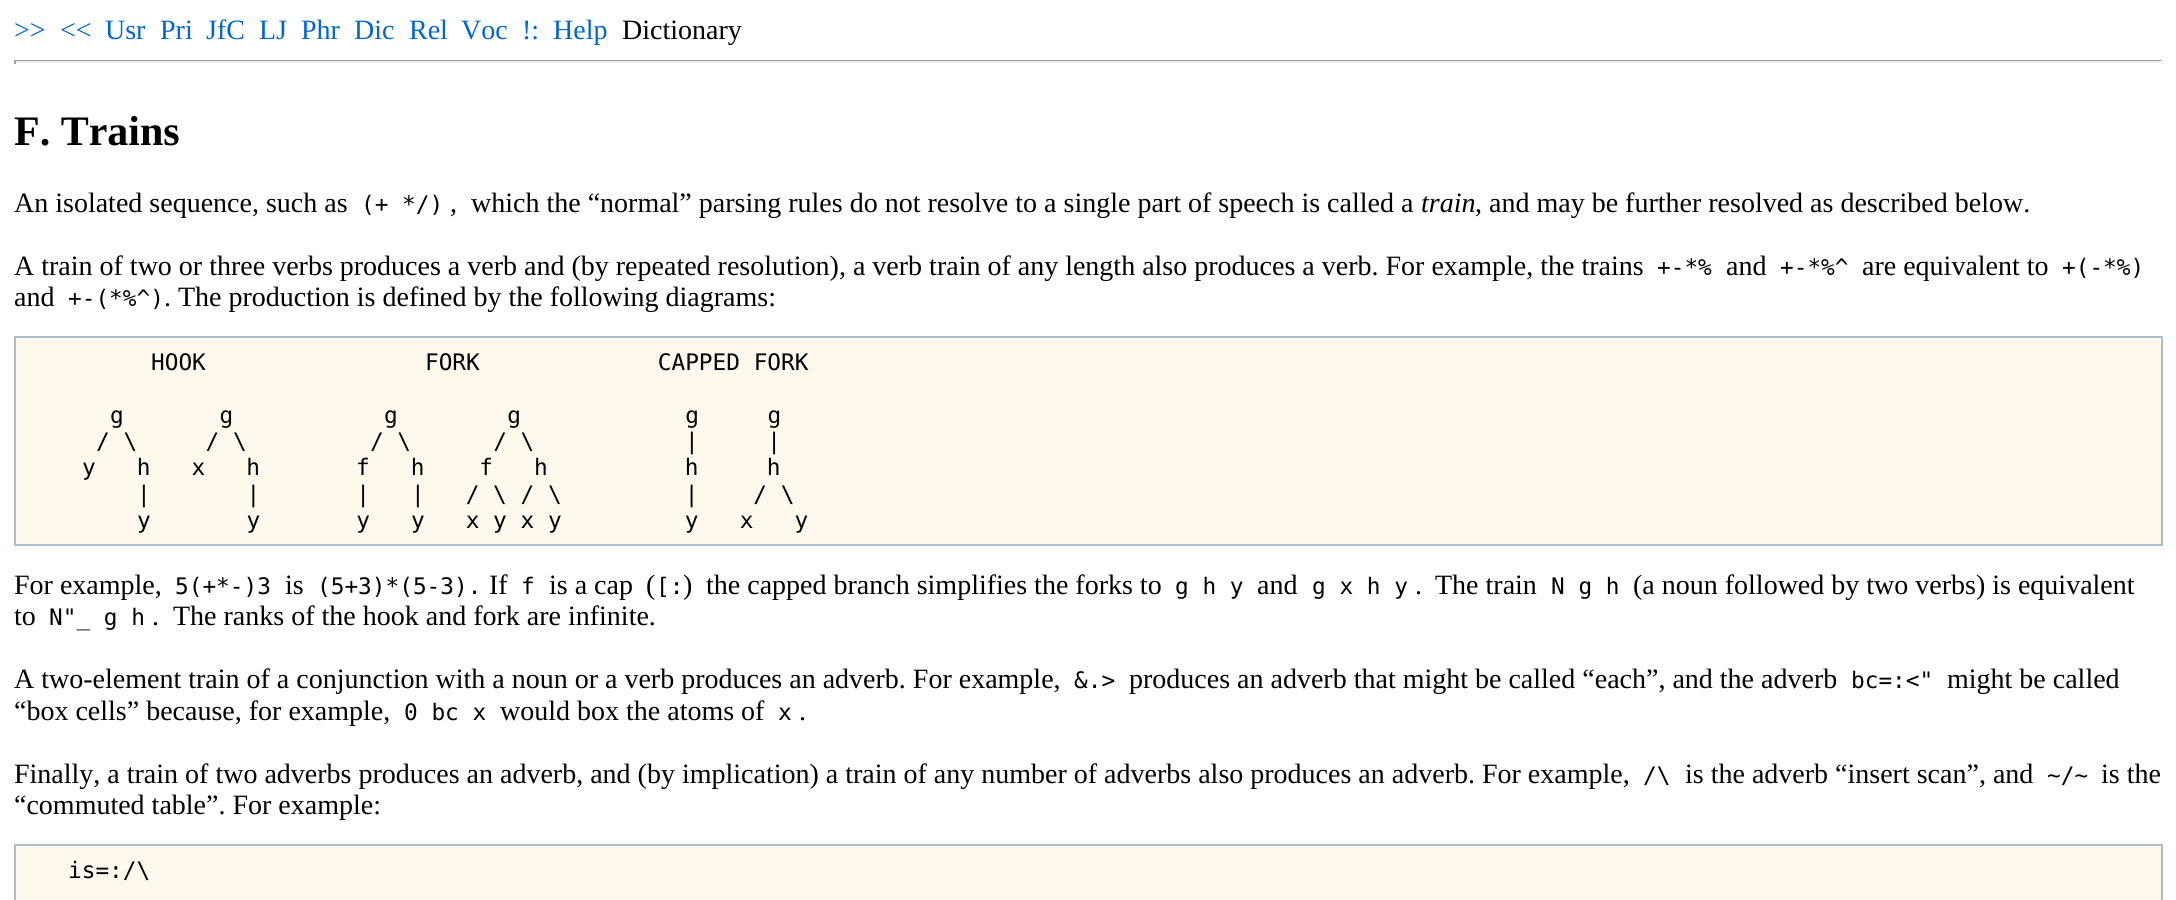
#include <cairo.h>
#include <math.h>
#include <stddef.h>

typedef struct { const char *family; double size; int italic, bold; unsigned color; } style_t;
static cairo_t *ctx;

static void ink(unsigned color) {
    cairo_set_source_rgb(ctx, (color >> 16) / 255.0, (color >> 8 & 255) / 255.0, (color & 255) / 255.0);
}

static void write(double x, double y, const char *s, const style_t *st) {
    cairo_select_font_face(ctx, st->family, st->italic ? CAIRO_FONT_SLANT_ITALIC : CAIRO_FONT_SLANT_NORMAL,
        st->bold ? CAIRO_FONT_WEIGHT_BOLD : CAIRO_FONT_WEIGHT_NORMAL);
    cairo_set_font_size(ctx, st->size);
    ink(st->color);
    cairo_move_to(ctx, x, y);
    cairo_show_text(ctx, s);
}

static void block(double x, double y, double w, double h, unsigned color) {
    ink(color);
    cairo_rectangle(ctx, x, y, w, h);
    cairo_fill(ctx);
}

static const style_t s1 = {"Liberation Serif", 28, 0, 0, 0x0066cc};
static const style_t s2 = {"Liberation Serif", 28, 0, 0, 0x000000};
static const style_t s3 = {"Liberation Serif", 42, 0, 1, 0x000000};
static const style_t s4 = {"DejaVu Sans Mono", 22.75, 0, 0, 0x000000};
static const style_t s5 = {"Liberation Serif", 28, 1, 0, 0x000000};

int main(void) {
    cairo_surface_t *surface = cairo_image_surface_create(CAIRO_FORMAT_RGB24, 2176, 900);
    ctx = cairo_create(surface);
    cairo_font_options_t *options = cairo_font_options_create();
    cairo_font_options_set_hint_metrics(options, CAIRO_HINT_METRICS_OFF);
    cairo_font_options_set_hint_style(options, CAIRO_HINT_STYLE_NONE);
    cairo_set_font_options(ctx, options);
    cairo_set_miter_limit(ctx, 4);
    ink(0xffffff);
    cairo_paint(ctx);
    write(14, 39, ">>", &s1);
    write(60, 39, "<<", &s1);
    write(105, 39, "Usr", &s1);
    write(160, 39, "Pri", &s1);
    write(206, 39, "JfC", &s1);
    write(259, 39, "LJ", &s1);
    write(301, 39, "Phr", &s1);
    write(354, 39, "Dic", &s1);
    write(409, 39, "Rel", &s1);
    write(461, 39, "Voc", &s1);
    write(522, 39, "!:", &s1);
    write(553, 39, "Help", &s1);
    write(622, 39, "Dictionary", &s2);
    block(14, 60, 2149, 1, 0x9f9f9f);
    block(2161, 60, 2, 4, 0xeeeeee);
    block(14, 61, 2149, 2, 0xeeeeee);
    block(14, 60, 2, 4, 0x9f9f9f);
    write(14, 145, "F. Trains", &s3);
    write(14, 212, "An isolated sequence, such as", &s2);
    write(361, 212, "(+ */)", &s4);
    write(450, 212, ",", &s2);
    write(471, 212, "which the “normal” parsing rules do not resolve to a single part of speech is called a", &s2);
    write(1421, 212, "train", &s5);
    write(1475, 212, ", and may be further resolved as described below.", &s2);
    write(14, 275, "A train of two or three verbs produces a verb and (by repeated resolution), a verb train of any length also produces a verb. For example, the trains", &s2);
    write(1657, 275, "+-*%", &s4);
    write(1726, 275, "and", &s2);
    write(1780, 275, "+-*%^", &s4);
    write(1862, 275, "are equivalent to", &s2);
    write(2062, 275, "+(-*%)", &s4);
    write(14, 306, "and", &s2);
    write(68, 306, "+-(*%^)", &s4);
    write(164, 306, ". The production is defined by the following diagrams:", &s2);
    ink(0xfff8ed);
    cairo_rectangle(ctx, 15, 337, 2147, 208);
    cairo_fill_preserve(ctx);
    ink(0xaebdcc);
    cairo_stroke(ctx);
    write(151, 370, "HOOK                FORK             CAPPED FORK", &s4);
    write(110, 423, "g       g           g        g            g     g", &s4);
    write(96, 449, "/ \\     / \\         / \\      / \\           |     |", &s4);
    write(82, 475, "y   h   x   h       f   h    f   h          h     h", &s4);
    write(137, 502, "|       |       |   |   / \\ / \\         |    / \\", &s4);
    write(137, 528, "y       y       y   y   x y x y         y   x   y", &s4);
    write(14, 594, "For example,", &s2);
    write(175, 594, "5(+*-)3", &s4);
    write(285, 594, "is", &s2);
    write(317, 594, "(5+3)*(5-3).", &s4);
    write(489, 594, "If", &s2);
    write(521, 594, "f", &s4);
    write(549, 594, "is a cap", &s2);
    write(646, 594, "(", &s2);
    write(656, 594, "[:", &s4);
    write(683, 594, ")", &s2);
    write(706, 594, "the capped branch simplifies the forks to", &s2);
    write(1175, 594, "g h y", &s4);
    write(1257, 594, "and", &s2);
    write(1312, 594, "g x h y", &s4);
    write(1415, 594, ".", &s2);
    write(1435, 594, "The train", &s2);
    write(1551, 594, "N g h", &s4);
    write(1633, 594, "(a noun followed by two verbs) is equivalent", &s2);
    write(14, 625, "to", &s2);
    write(49, 625, "N\"_ g h", &s4);
    write(152, 625, ".", &s2);
    write(173, 625, "The ranks of the hook and fork are infinite.", &s2);
    write(14, 688, "A two-element train of a conjunction with a noun or a verb produces an adverb. For example,", &s2);
    write(1074, 688, "&.>", &s4);
    write(1129, 688, "produces an adverb that might be called “each”, and the adverb", &s2);
    write(1851, 688, "bc=:<\"", &s4);
    write(1947, 688, "might be called", &s2);
    write(14, 720, "“box cells” because, for example,", &s2);
    write(404, 720, "0 bc x", &s4);
    write(500, 720, "would box the atoms of", &s2);
    write(778, 720, "x", &s4);
    write(799, 720, ".", &s2);
    write(14, 783, "Finally, a train of two adverbs produces an adverb, and (by implication) a train of any number of adverbs also produces an adverb. For example,", &s2);
    write(1643, 783, "/\\", &s4);
    write(1685, 783, "is the adverb “insert scan”, and", &s2);
    write(2047, 783, "~/~", &s4);
    write(2101, 783, "is the", &s2);
    write(14, 814, "“commuted table”. For example:", &s2);
    ink(0xfff8ed);
    cairo_rectangle(ctx, 15, 845, 2147, 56);
    cairo_fill_preserve(ctx);
    ink(0xaebdcc);
    cairo_stroke(ctx);
    write(68, 878, "is=:/\\", &s4);
    cairo_surface_write_to_png(surface, "screenshot.png");
    cairo_font_options_destroy(options);
    cairo_destroy(ctx);
    cairo_surface_destroy(surface);
    return 0;
}
